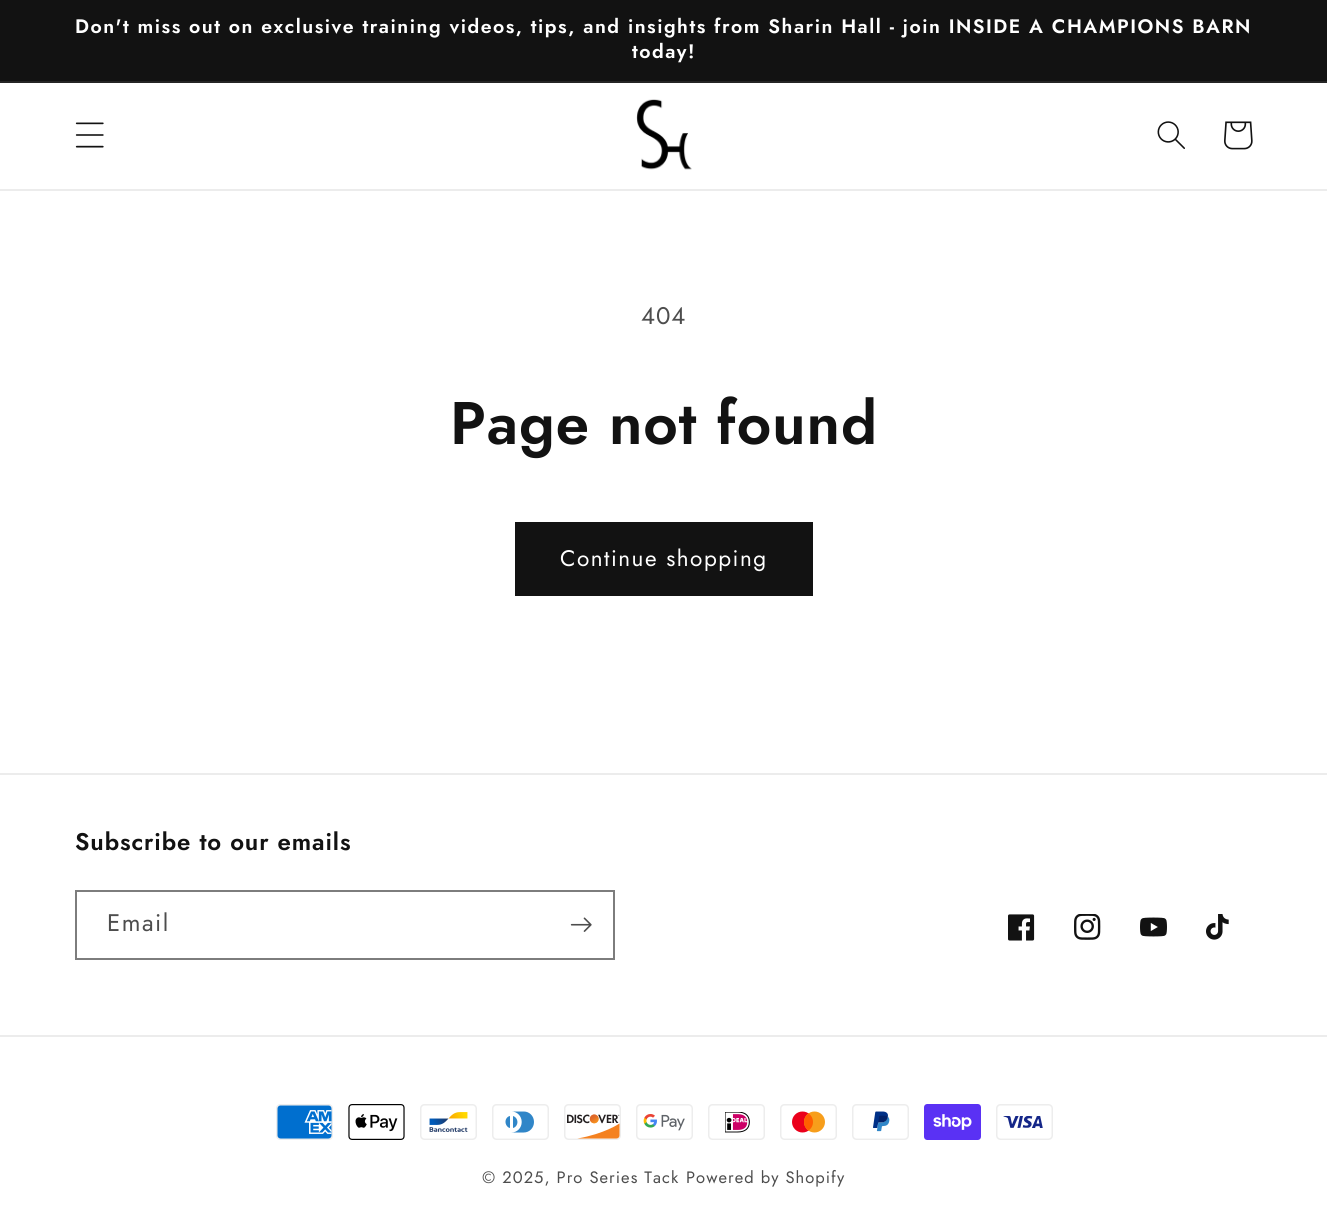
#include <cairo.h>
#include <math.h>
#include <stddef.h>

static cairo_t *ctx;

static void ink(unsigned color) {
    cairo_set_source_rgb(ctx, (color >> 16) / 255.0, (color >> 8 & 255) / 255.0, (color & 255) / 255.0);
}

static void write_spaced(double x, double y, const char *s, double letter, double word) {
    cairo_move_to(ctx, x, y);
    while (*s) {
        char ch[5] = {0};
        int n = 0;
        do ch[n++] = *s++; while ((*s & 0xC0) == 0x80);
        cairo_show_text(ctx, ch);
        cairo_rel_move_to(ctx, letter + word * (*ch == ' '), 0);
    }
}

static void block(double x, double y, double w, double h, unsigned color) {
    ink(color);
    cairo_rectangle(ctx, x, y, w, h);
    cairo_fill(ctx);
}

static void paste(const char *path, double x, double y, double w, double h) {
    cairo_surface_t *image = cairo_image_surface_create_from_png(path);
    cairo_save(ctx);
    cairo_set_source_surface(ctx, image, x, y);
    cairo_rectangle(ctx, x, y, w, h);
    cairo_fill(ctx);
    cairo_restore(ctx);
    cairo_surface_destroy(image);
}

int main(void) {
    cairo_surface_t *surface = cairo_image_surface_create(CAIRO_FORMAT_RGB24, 1327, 1228);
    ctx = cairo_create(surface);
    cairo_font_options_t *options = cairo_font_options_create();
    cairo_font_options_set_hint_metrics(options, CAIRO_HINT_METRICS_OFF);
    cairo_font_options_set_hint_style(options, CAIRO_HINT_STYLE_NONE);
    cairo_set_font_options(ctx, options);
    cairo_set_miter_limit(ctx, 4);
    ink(0xffffff);
    cairo_paint(ctx);
    block(0, 0, 1327, 81, 0x121212);
    block(0, 81, 1327, 2, 0x252525);
    cairo_select_font_face(ctx, "Jost SemiBold", CAIRO_FONT_SLANT_NORMAL, CAIRO_FONT_WEIGHT_NORMAL);
    cairo_set_font_size(ctx, 19.5);
    ink(0xffffff);
    write_spaced(75, 33, "Don't miss out on exclusive training videos, tips, and insights from Sharin Hall - join INSIDE A CHAMPIONS BARN", 1.5, 0);
    write_spaced(632, 58, "today!", 1.5, 0);
    block(0, 189, 1327, 2, 0xececec);
    paste("pic1.png", 75, 122, 29, 26);
    paste("pic2.png", 636, 99, 56, 71);
    paste("pic3.png", 1157, 121, 28, 28);
    paste("pic4.png", 1224, 121, 29, 29);
    cairo_select_font_face(ctx, "Jost", CAIRO_FONT_SLANT_NORMAL, CAIRO_FONT_WEIGHT_NORMAL);
    cairo_set_font_size(ctx, 24);
    ink(0x4d4d4d);
    write_spaced(641, 324, "404", 0.9, 0);
    cairo_select_font_face(ctx, "Jost SemiBold", CAIRO_FONT_SLANT_NORMAL, CAIRO_FONT_WEIGHT_NORMAL);
    cairo_set_font_size(ctx, 60);
    ink(0x121212);
    write_spaced(450, 444, "Page not found", 0.9, 0);
    block(515, 522, 298, 74, 0x121212);
    cairo_select_font_face(ctx, "Jost", CAIRO_FONT_SLANT_NORMAL, CAIRO_FONT_WEIGHT_NORMAL);
    cairo_set_font_size(ctx, 22.5);
    ink(0xffffff);
    write_spaced(560, 566, "Continue shopping", 1.5, 0);
    block(0, 773, 1327, 2, 0xececec);
    cairo_select_font_face(ctx, "Jost SemiBold", CAIRO_FONT_SLANT_NORMAL, CAIRO_FONT_WEIGHT_NORMAL);
    cairo_set_font_size(ctx, 24);
    ink(0x121212);
    write_spaced(75, 850, "Subscribe to our emails", 0.9, 0);
    cairo_rectangle(ctx, 76, 891, 538, 68);
    ink(0x7d7d7d);
    cairo_stroke(ctx);
    cairo_select_font_face(ctx, "Jost", CAIRO_FONT_SLANT_NORMAL, CAIRO_FONT_WEIGHT_NORMAL);
    ink(0x4d4d4d);
    write_spaced(107, 931, "Email", 1.5, 0);
    paste("pic5.png", 570, 917, 22, 15);
    paste("pic6.png", 1008, 914, 27, 27);
    paste("pic7.png", 1074, 914, 27, 26);
    paste("pic8.png", 1140, 917, 27, 20);
    paste("pic9.png", 1206, 914, 23, 26);
    block(0, 1035, 1327, 2, 0xececec);
    paste("pic10.png", 276, 1104, 57, 36);
    paste("pic11.png", 348, 1104, 57, 36);
    paste("pic12.png", 420, 1104, 57, 36);
    paste("pic13.png", 492, 1104, 57, 36);
    paste("pic14.png", 564, 1104, 57, 36);
    paste("pic15.png", 636, 1104, 57, 36);
    paste("pic16.png", 708, 1104, 57, 36);
    paste("pic17.png", 780, 1104, 57, 36);
    paste("pic18.png", 852, 1104, 57, 36);
    paste("pic19.png", 924, 1104, 57, 36);
    paste("pic20.png", 996, 1104, 57, 36);
    cairo_set_font_size(ctx, 16.5);
    ink(0x4d4d4d);
    write_spaced(482, 1183, "© 2025, Pro Series Tack", 1.05, 0);
    write_spaced(686, 1183, "Powered by Shopify", 1.05, 0);
    cairo_surface_write_to_png(surface, "screenshot.png");
    cairo_font_options_destroy(options);
    cairo_destroy(ctx);
    cairo_surface_destroy(surface);
    return 0;
}
